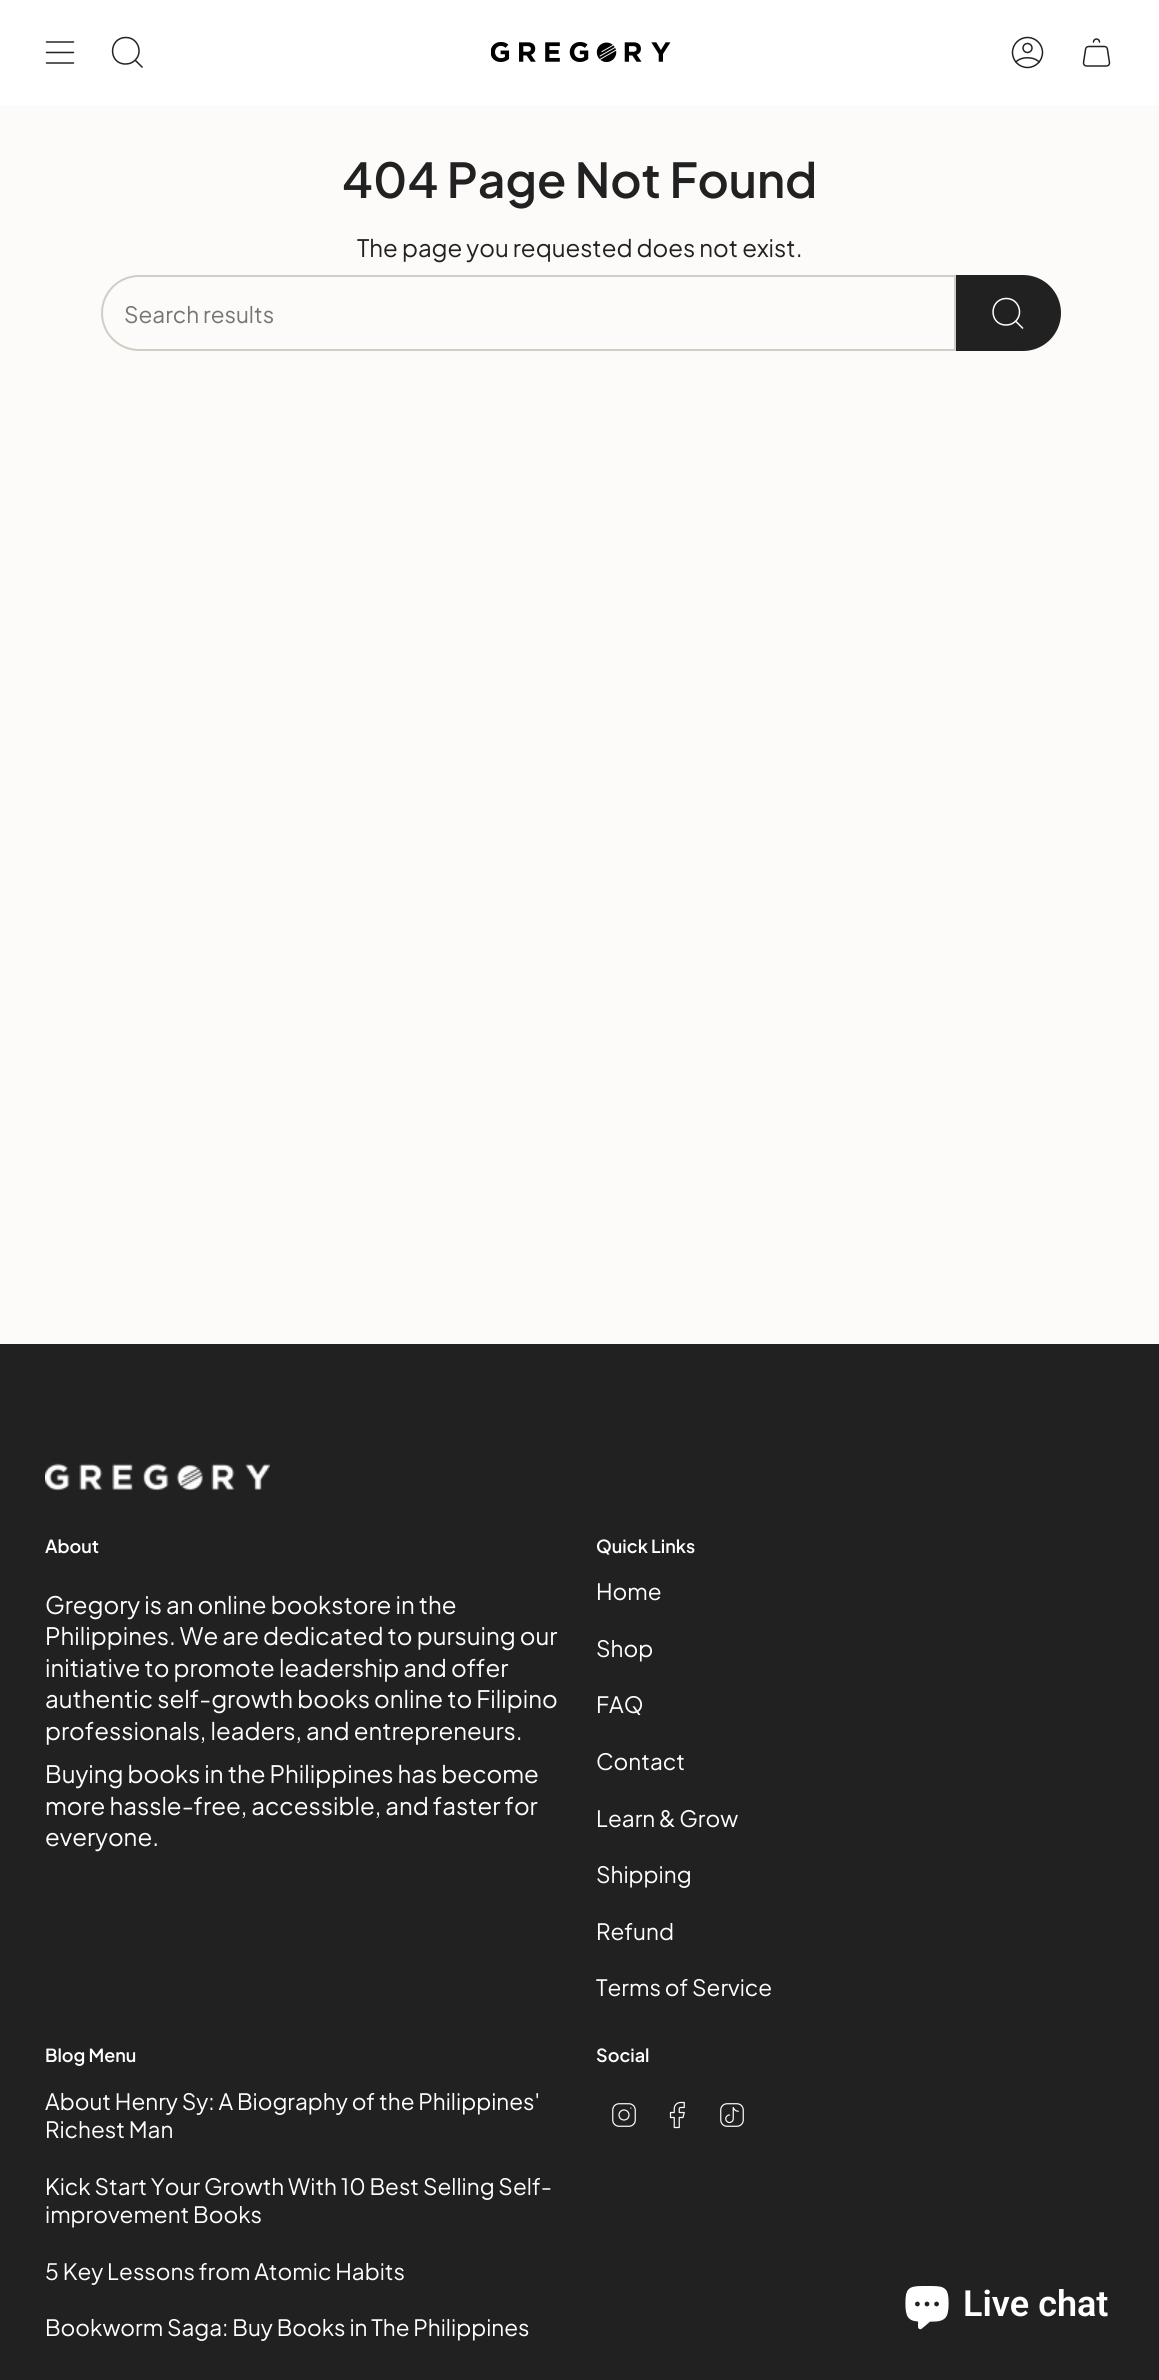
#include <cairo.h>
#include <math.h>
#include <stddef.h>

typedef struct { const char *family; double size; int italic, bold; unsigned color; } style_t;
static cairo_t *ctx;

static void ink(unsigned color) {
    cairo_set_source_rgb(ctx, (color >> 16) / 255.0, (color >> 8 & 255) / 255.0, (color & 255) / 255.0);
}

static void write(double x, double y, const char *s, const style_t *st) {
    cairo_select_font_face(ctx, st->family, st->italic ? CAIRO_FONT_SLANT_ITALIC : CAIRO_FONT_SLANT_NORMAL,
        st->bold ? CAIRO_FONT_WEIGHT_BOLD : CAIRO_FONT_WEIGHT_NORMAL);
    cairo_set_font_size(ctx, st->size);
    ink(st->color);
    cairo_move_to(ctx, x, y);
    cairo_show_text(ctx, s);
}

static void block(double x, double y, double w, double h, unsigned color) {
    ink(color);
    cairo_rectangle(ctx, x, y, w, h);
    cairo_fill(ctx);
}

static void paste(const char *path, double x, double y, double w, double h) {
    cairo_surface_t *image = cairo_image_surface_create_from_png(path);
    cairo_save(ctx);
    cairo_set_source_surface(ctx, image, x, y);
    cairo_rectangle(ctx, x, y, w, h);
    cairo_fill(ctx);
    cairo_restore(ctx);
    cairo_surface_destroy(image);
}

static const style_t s1 = {"Plus Jakarta Sans SemiBold", 48, 0, 0, 0x212121};
static const style_t s2 = {"Plus Jakarta Sans", 24, 0, 0, 0x212121};
static const style_t s3 = {"Plus Jakarta Sans", 22.5, 0, 0, 0x757575};
static const style_t s4 = {"Plus Jakarta Sans SemiBold", 18, 0, 0, 0xffffff};
static const style_t s5 = {"Plus Jakarta Sans", 24, 0, 0, 0xffffff};
static const style_t s6 = {"Plus Jakarta Sans", 22.5, 0, 0, 0xffffff};
static const style_t s7 = {"Roboto SemiBold", 36, 0, 0, 0xffffff};

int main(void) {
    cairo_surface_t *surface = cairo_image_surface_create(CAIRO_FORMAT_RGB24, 1159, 2380);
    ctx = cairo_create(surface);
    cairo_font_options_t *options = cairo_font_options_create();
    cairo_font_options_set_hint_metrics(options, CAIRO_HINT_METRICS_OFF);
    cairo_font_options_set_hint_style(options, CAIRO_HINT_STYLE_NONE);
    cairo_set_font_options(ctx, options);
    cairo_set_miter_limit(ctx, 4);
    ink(0xfcfbf9);
    cairo_paint(ctx);
    block(0, 0, 1159, 105, 0xffffff);
    cairo_new_path(ctx);
    cairo_move_to(ctx, 46.5, 42);
    cairo_line_to(ctx, 73.5, 42);
    cairo_move_to(ctx, 46.5, 52.5);
    cairo_line_to(ctx, 73.5, 52.5);
    cairo_move_to(ctx, 46.5, 63);
    cairo_line_to(ctx, 73.5, 63);
    ink(0x212121);
    cairo_set_line_width(ctx, 1.5);
    cairo_set_line_cap(ctx, CAIRO_LINE_CAP_ROUND);
    cairo_set_line_join(ctx, CAIRO_LINE_JOIN_ROUND);
    cairo_stroke(ctx);
    cairo_new_path(ctx);
    cairo_move_to(ctx, 126, 37.5);
    cairo_curve_to(ctx, 138.5, 37.5, 144, 54, 133.5, 61.5);
    cairo_curve_to(ctx, 131, 63.5, 128, 64, 125, 64);
    cairo_curve_to(ctx, 108, 63.5, 108.5, 37.5, 126, 37.5);
    cairo_close_path(ctx);
    cairo_move_to(ctx, 135, 60);
    cairo_line_to(ctx, 142.5, 67.5);
    cairo_set_line_cap(ctx, CAIRO_LINE_CAP_BUTT);
    cairo_set_line_join(ctx, CAIRO_LINE_JOIN_MITER);
    cairo_stroke(ctx);
    paste("pic1.png", 491, 42, 180, 20);
    paste("pic2.png", 1011, 36, 33, 33);
    paste("pic3.png", 1082, 38, 29, 29);
    write(342, 198, "404 Page Not Found", &s1);
    write(357, 257, "The page you requested does not exist.", &s2);
    cairo_new_path(ctx);
    cairo_move_to(ctx, 139, 276);
    cairo_line_to(ctx, 955, 276);
    cairo_line_to(ctx, 955, 350);
    cairo_line_to(ctx, 139, 350);
    cairo_curve_to(ctx, 118.5, 350, 102, 333.5, 102, 313);
    cairo_curve_to(ctx, 102, 292.5, 118.5, 276, 139, 276);
    cairo_close_path(ctx);
    ink(0xd1cdc4);
    cairo_set_line_width(ctx, 2);
    cairo_stroke(ctx);
    write(124, 323, "Search results", &s3);
    ink(0x212121);
    cairo_new_path(ctx);
    cairo_move_to(ctx, 957, 276);
    cairo_line_to(ctx, 1023, 276);
    cairo_curve_to(ctx, 1043.5, 276, 1060, 292.5, 1060, 313);
    cairo_curve_to(ctx, 1060, 333.5, 1043.5, 350, 1023, 350);
    cairo_line_to(ctx, 957, 350);
    cairo_close_path(ctx);
    cairo_fill_preserve(ctx);
    cairo_stroke(ctx);
    cairo_new_path(ctx);
    cairo_move_to(ctx, 1006.5, 298.5);
    cairo_curve_to(ctx, 1019, 298.5, 1024.5, 315, 1014, 322.5);
    cairo_curve_to(ctx, 1011.5, 324.5, 1008.5, 325, 1005.5, 325);
    cairo_curve_to(ctx, 988.5, 324.5, 989, 298.5, 1006.5, 298.5);
    cairo_close_path(ctx);
    cairo_move_to(ctx, 1015.5, 321);
    cairo_line_to(ctx, 1023, 328.5);
    ink(0xffffff);
    cairo_set_line_width(ctx, 1.5);
    cairo_stroke(ctx);
    block(0, 1344, 1159, 1036, 0x212121);
    paste("pic4.png", 45, 1463, 225, 28);
    write(45, 1553, "About", &s4);
    write(45, 1614, "Gregory is an online bookstore in the", &s5);
    write(45, 1645, "Philippines. We are dedicated to pursuing our", &s5);
    write(45, 1677, "initiative to promote leadership and offer", &s5);
    write(45, 1708, "authentic self-growth books online to Filipino", &s5);
    write(45, 1740, "professionals, leaders, and entrepreneurs.", &s5);
    write(45, 1783, "Buying books in the Philippines has become", &s5);
    write(45, 1815, "more hassle-free, accessible, and faster for", &s5);
    write(45, 1846, "everyone.", &s5);
    write(596, 1553, "Quick Links", &s4);
    write(596, 1600, "Home", &s6);
    write(596, 1657, "Shop", &s6);
    write(596, 1713, "FAQ", &s6);
    write(596, 1770, "Contact", &s6);
    write(596, 1827, "Learn & Grow", &s6);
    write(596, 1883, "Shipping", &s6);
    write(596, 1940, "Refund", &s6);
    write(596, 1996, "Terms of Service", &s6);
    write(45, 2062, "Blog Menu", &s4);
    write(45, 2110, "About Henry Sy: A Biography of the Philippines'", &s6);
    write(45, 2138, "Richest Man", &s6);
    write(45, 2195, "Kick Start Your Growth With 10 Best Selling Self-", &s6);
    write(45, 2223, "improvement Books", &s6);
    write(45, 2280, "5 Key Lessons from Atomic Habits", &s6);
    write(45, 2336, "Bookworm Saga: Buy Books in The Philippines", &s6);
    write(596, 2062, "Social", &s4);
    paste("pic5.png", 612, 2103, 24, 24);
    paste("pic6.png", 669, 2101, 16, 28);
    paste("pic7.png", 720, 2103, 24, 24);
    paste("pic8.png", 905, 2286, 44, 44);
    write(963, 2316, "Live chat", &s7);
    cairo_surface_write_to_png(surface, "screenshot.png");
    cairo_font_options_destroy(options);
    cairo_destroy(ctx);
    cairo_surface_destroy(surface);
    return 0;
}
